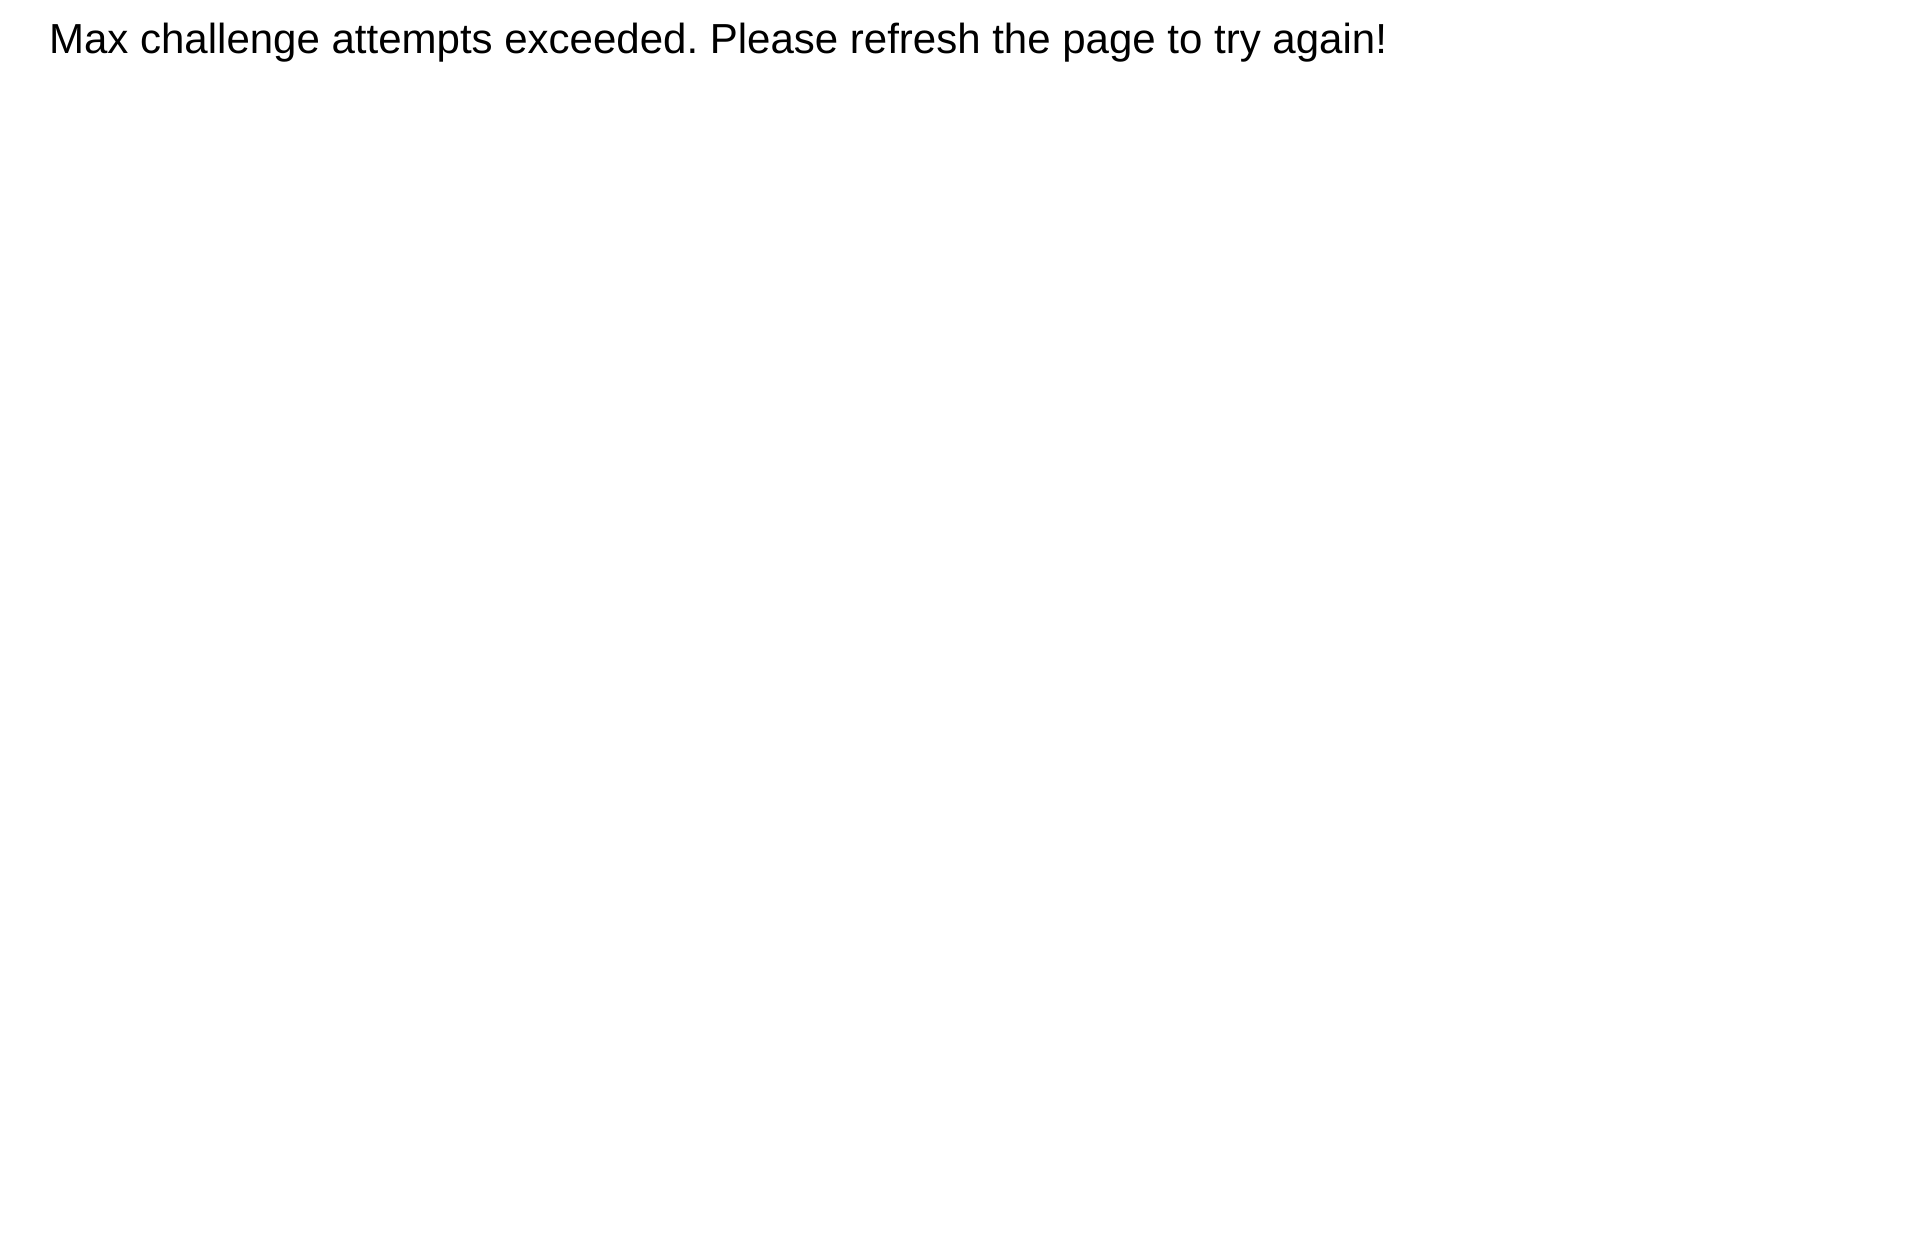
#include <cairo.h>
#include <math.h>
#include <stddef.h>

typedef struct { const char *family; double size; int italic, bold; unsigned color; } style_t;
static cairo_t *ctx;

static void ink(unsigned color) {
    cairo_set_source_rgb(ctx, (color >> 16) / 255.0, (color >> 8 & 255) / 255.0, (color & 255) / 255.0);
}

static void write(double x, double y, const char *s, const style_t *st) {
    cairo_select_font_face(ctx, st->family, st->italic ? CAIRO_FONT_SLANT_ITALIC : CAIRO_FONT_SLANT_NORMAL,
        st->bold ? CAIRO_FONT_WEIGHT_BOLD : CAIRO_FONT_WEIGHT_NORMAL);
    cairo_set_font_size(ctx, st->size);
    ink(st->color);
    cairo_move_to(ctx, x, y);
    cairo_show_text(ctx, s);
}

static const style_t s1 = {"Liberation Sans", 42, 0, 0, 0x000000};

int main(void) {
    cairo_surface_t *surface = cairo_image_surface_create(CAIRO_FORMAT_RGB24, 1915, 1256);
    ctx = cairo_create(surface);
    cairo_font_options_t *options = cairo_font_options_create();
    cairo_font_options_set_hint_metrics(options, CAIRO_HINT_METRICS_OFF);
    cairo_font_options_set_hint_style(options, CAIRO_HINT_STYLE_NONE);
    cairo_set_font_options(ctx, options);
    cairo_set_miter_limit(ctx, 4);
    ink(0xffffff);
    cairo_paint(ctx);
    write(49, 53, "Max challenge attempts exceeded. Please refresh the page to try again!", &s1);
    cairo_surface_write_to_png(surface, "screenshot.png");
    cairo_font_options_destroy(options);
    cairo_destroy(ctx);
    cairo_surface_destroy(surface);
    return 0;
}
